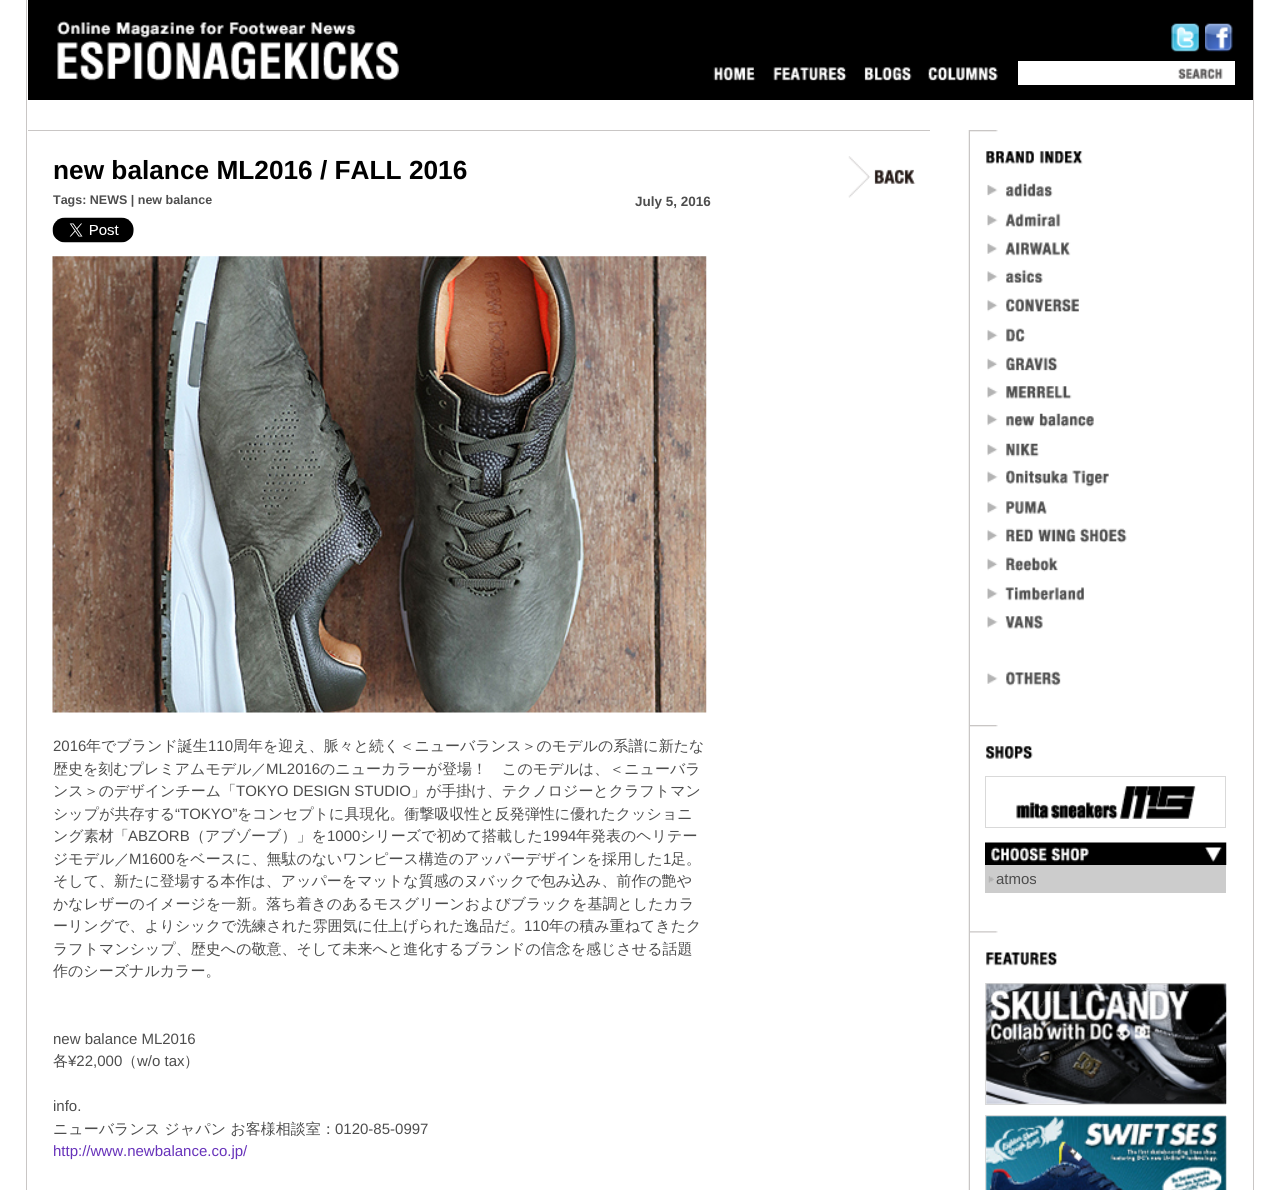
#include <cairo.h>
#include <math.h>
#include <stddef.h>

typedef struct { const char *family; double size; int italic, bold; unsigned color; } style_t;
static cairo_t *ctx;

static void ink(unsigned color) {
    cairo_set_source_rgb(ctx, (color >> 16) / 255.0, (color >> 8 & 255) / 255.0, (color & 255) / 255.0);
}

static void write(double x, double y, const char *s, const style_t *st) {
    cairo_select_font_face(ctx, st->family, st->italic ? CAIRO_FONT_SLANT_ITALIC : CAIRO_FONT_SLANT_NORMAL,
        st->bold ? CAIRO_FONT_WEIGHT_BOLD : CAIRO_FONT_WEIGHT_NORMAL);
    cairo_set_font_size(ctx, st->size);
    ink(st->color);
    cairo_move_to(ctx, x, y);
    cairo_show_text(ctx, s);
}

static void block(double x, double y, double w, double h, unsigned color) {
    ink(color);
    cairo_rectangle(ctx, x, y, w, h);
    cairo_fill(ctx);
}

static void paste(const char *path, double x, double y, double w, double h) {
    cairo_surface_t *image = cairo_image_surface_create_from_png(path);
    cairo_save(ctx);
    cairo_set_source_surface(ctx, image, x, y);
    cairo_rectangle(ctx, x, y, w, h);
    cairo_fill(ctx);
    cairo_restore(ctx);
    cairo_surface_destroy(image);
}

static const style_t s1 = {"Liberation Sans", 26.25, 0, 1, 0x000000};
static const style_t s2 = {"Liberation Sans", 12.5, 0, 1, 0x4d4d4d};
static const style_t s3 = {"Liberation Sans", 13.5, 0, 1, 0x4d4d4d};
static const style_t s4 = {"Liberation Sans", 15, 0, 0, 0x4d4d4d};
static const style_t s5 = {"WenQuanYi Zen Hei Medium", 15, 0, 0, 0x4d4d4d};
static const style_t s6 = {"Liberation Sans", 15, 0, 0, 0x6732ba};

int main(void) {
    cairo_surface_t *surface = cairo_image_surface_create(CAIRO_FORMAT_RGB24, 1279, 1190);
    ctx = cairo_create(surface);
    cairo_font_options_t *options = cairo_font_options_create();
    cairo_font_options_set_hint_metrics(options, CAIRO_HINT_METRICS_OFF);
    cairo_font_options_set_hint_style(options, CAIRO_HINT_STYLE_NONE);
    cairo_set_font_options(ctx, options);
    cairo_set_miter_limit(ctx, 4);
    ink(0xffffff);
    cairo_paint(ctx);
    block(1253, 0, 1, 1190, 0xc9c6c5);
    block(26, 0, 1, 1190, 0xc9c6c5);
    block(28, 0, 1225, 100, 0x000000);
    paste("pic1.png", 57, 21, 342, 60);
    paste("pic2.png", 1171, 23, 28, 29);
    paste("pic3.png", 1205, 23, 28, 29);
    paste("pic4.png", 713, 67, 43, 14);
    paste("pic5.png", 773, 67, 74, 14);
    paste("pic6.png", 864, 67, 48, 14);
    paste("pic7.png", 928, 67, 70, 14);
    block(1018, 61, 217, 24, 0xffffff);
    paste("pic8.png", 1178, 68, 45, 11);
    paste("pic9.png", 968, 130, 2, 1060);
    block(28, 130, 902, 1, 0xc9c6c5);
    write(53, 179, "new balance ML2016 / FALL 2016", &s1);
    paste("pic10.png", 848, 156, 68, 42);
    write(53, 204, "Tags: NEWS | new balance", &s2);
    write(635, 206, "July 5, 2016", &s3);
    paste("pic11.png", 52, 217, 82, 26);
    paste("pic12.png", 52, 256, 655, 457);
    write(53, 751, "2016", &s4);
    write(86, 751, "年でブランド誕生", &s5);
    write(208, 751, "110", &s4);
    write(233, 751, "周年を迎え、脈々と続く＜ニューバランス＞のモデルの系譜に新たな", &s5);
    write(53, 774, "歴史を刻むプレミアムモデル／", &s5);
    write(266, 774, "ML2016", &s4);
    write(320, 774, "のニューカラーが登場！　このモデルは、＜ニューバラ", &s5);
    write(53, 796, "ンス＞のデザインチーム「", &s5);
    write(236, 796, "TOKYO DESIGN STUDIO", &s4);
    write(411, 796, "」が手掛け、テクノロジーとクラフトマン", &s5);
    write(53, 819, "シップが共存する", &s5);
    write(175, 819, "“TOKYO”", &s4);
    write(237, 819, "をコンセプトに具現化。衝撃吸収性と反発弾性に優れたクッショニ", &s5);
    write(53, 841, "ング素材「", &s5);
    write(128, 841, "ABZORB", &s4);
    write(190, 841, "（アブゾーブ）」を", &s5);
    write(327, 841, "1000", &s4);
    write(360, 841, "シリーズで初めて搭載した", &s5);
    write(543, 841, "1994", &s4);
    write(576, 841, "年発表のヘリテー", &s5);
    write(53, 864, "ジモデル／", &s5);
    write(129, 864, "M1600", &s4);
    write(175, 864, "をベースに、無駄のないワンピース構造のアッパーデザインを採用した", &s5);
    write(663, 864, "1", &s4);
    write(671, 864, "足。", &s5);
    write(53, 886, "そして、新たに登場する本作は、アッパーをマットな質感のヌバックで包み込み、前作の艶や", &s5);
    write(53, 909, "かなレザーのイメージを一新。落ち着きのあるモスグリーンおよびブラックを基調としたカラ", &s5);
    write(53, 931, "ーリングで、よりシックで洗練された雰囲気に仕上げられた逸品だ。", &s5);
    write(524, 931, "110", &s4);
    write(549, 931, "年の積み重ねてきたク", &s5);
    write(53, 954, "ラフトマンシップ、歴史への敬意、そして未来へと進化するブランドの信念を感じさせる話題", &s5);
    write(53, 976, "作のシーズナルカラー。", &s5);
    write(53, 1044, "new balance ML2016", &s4);
    write(53, 1066, "各", &s5);
    write(68, 1066, "¥22,000", &s4);
    write(122, 1066, "（", &s5);
    write(137, 1066, "w/o tax", &s4);
    write(184, 1066, "）", &s5);
    write(53, 1111, "info.", &s4);
    write(53, 1134, "ニューバランス ジャパン お客様相談室：", &s5);
    write(335, 1134, "0120-85-0997", &s4);
    write(53, 1156, "http://www.newbalance.co.jp/", &s6);
    paste("pic13.png", 970, 130, 113, 34);
    paste("pic14.png", 987, 183, 66, 14);
    paste("pic15.png", 987, 213, 74, 14);
    paste("pic16.png", 987, 242, 84, 14);
    paste("pic17.png", 987, 269, 56, 14);
    paste("pic18.png", 987, 298, 92, 14);
    paste("pic19.png", 987, 328, 39, 14);
    paste("pic20.png", 987, 357, 71, 14);
    paste("pic21.png", 987, 386, 85, 13);
    paste("pic22.png", 987, 413, 107, 14);
    paste("pic23.png", 987, 443, 52, 14);
    paste("pic24.png", 987, 470, 122, 17);
    paste("pic25.png", 987, 501, 60, 13);
    paste("pic26.png", 987, 528, 140, 15);
    paste("pic27.png", 987, 557, 71, 15);
    paste("pic28.png", 987, 587, 97, 14);
    paste("pic29.png", 987, 615, 56, 14);
    paste("pic30.png", 987, 671, 74, 15);
    paste("pic31.png", 970, 725, 63, 34);
    cairo_rectangle(ctx, 985.5, 776.5, 240, 51);
    ink(0xd9d9d9);
    cairo_set_line_width(ctx, 1);
    cairo_stroke(ctx);
    paste("pic32.png", 1016, 786, 180, 33);
    paste("pic33.png", 985, 842, 242, 23);
    block(985, 865, 241, 28, 0xcccccc);
    paste("pic34.png", 988, 876, 6, 7);
    write(996, 884, "atmos", &s4);
    paste("pic35.png", 970, 931, 87, 35);
    cairo_rectangle(ctx, 985.5, 983.5, 240, 121);
    ink(0xd9d9d9);
    cairo_stroke(ctx);
    paste("pic36.png", 986, 983, 241, 121);
    cairo_rectangle(ctx, 985.5, 1115.5, 240, 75);
    cairo_stroke(ctx);
    paste("pic37.png", 986, 1116, 241, 74);
    cairo_surface_write_to_png(surface, "screenshot.png");
    cairo_font_options_destroy(options);
    cairo_destroy(ctx);
    cairo_surface_destroy(surface);
    return 0;
}
